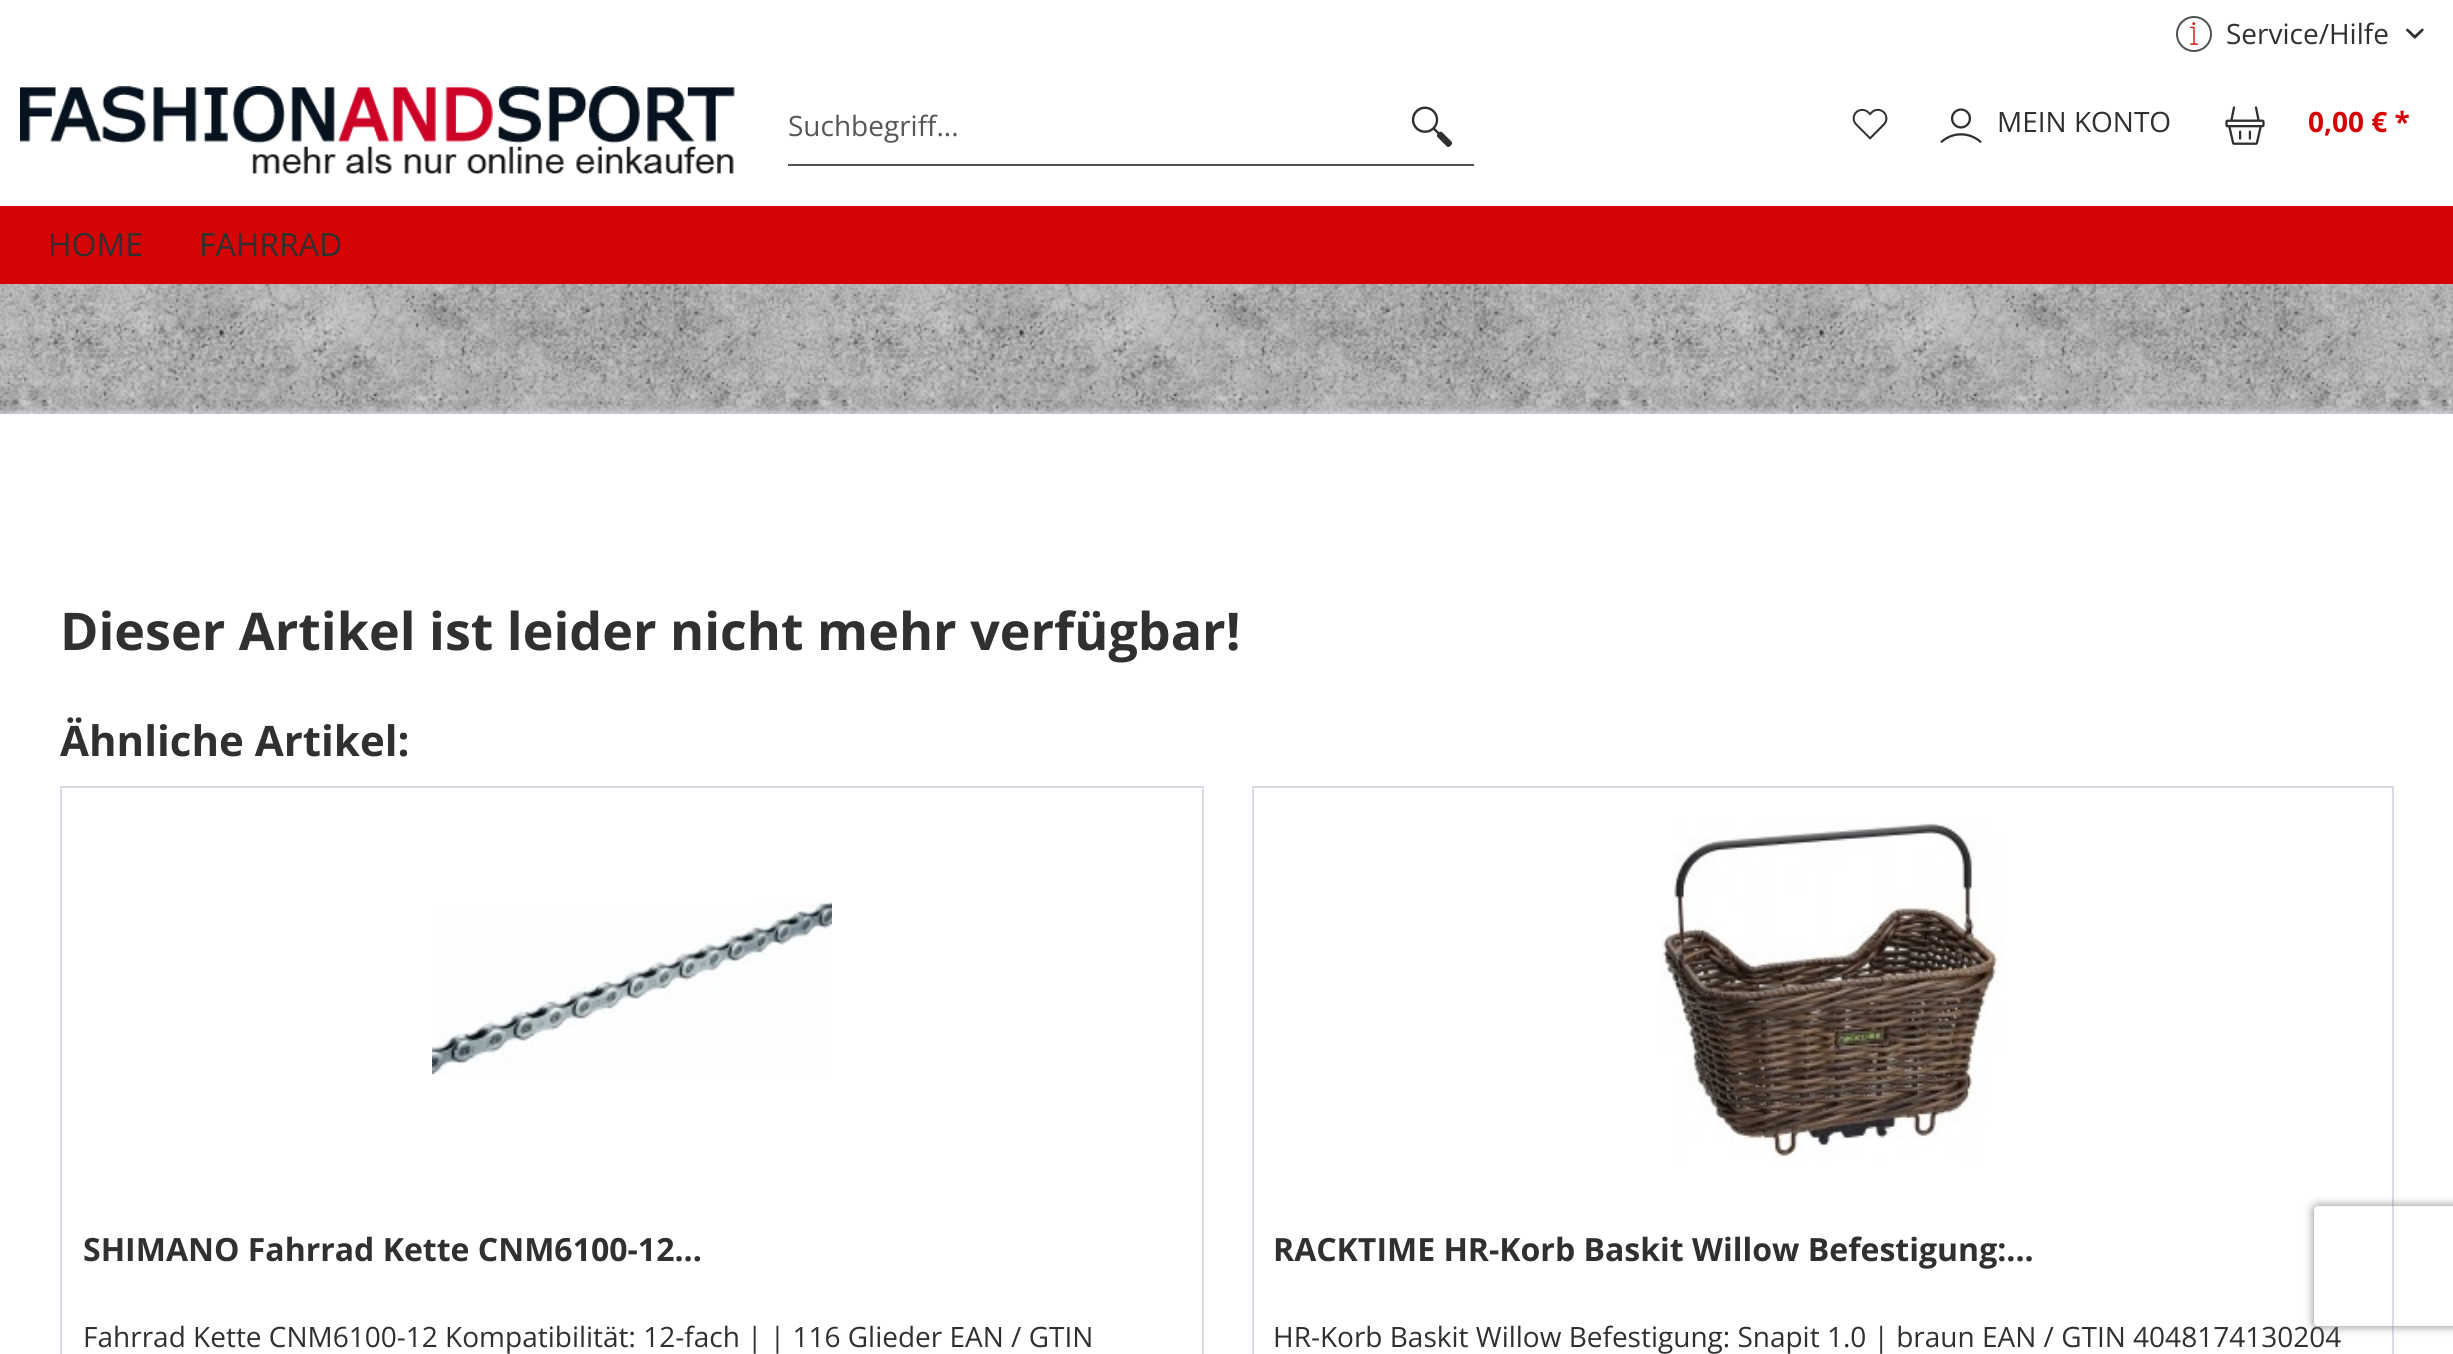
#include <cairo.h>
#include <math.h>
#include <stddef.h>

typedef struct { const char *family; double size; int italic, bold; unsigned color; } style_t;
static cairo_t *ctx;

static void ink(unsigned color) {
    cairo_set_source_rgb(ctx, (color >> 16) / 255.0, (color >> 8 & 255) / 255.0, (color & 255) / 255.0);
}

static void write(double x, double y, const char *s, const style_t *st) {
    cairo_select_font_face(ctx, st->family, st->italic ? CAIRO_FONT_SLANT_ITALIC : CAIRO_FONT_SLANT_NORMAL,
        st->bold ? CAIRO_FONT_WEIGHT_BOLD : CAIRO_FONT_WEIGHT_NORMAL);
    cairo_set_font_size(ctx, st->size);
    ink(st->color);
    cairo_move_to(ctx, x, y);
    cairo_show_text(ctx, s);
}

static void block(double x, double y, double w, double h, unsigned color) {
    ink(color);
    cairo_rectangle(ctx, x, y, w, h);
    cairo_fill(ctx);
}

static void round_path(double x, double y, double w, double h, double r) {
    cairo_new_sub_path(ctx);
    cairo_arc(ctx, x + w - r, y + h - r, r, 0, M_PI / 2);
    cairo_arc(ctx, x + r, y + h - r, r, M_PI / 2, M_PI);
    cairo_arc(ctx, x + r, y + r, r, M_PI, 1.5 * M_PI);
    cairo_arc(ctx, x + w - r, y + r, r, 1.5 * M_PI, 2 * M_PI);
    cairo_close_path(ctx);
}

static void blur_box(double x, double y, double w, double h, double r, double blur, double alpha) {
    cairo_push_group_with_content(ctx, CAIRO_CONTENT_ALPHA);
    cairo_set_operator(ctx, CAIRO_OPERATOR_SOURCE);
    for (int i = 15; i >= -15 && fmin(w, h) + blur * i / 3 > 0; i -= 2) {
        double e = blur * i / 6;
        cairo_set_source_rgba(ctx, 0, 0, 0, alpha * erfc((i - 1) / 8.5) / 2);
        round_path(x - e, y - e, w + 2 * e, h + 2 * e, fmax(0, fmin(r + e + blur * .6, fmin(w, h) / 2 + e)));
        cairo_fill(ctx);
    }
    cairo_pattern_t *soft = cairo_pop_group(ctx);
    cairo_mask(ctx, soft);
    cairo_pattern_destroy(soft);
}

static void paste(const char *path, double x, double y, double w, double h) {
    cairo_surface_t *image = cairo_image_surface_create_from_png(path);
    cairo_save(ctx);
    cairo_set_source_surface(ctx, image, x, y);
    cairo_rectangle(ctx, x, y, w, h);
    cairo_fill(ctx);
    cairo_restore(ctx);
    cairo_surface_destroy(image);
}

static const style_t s1 = {"Open Sans", 28, 0, 0, 0x303030};
static const style_t s2 = {"Open Sans", 28, 0, 0, 0x565656};
static const style_t s3 = {"Open Sans", 28, 0, 1, 0xd50303};
static const style_t s4 = {"Open Sans", 32, 0, 0, 0x303030};
static const style_t s5 = {"Open Sans", 52, 0, 1, 0x303030};
static const style_t s6 = {"Open Sans", 42, 0, 1, 0x303030};
static const style_t s7 = {"Open Sans", 32, 0, 1, 0x303030};

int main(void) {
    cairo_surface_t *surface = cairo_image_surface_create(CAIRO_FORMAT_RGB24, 2453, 1354);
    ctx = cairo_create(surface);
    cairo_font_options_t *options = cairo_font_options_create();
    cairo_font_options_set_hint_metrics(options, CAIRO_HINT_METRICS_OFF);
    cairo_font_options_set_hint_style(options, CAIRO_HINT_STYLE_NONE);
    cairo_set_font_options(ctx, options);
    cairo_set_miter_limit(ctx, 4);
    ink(0xffffff);
    cairo_paint(ctx);
    paste("pic1.png", 0, 284, 2453, 130);
    cairo_arc(ctx, 2194, 34, 17, 0, 2 * M_PI);
    ink(0x515151);
    cairo_stroke(ctx);
    paste("pic2.png", 2190, 22, 8, 23);
    write(2226, 44, "Service/Hilfe", &s1);
    paste("pic3.png", 2406, 28, 18, 11);
    paste("pic4.png", 20, 86, 715, 88);
    block(788, 164, 686, 2, 0x515151);
    write(788, 136, "Suchbegriff...", &s2);
    paste("pic5.png", 1411, 106, 42, 41);
    paste("pic6.png", 1852, 108, 36, 32);
    paste("pic7.png", 1940, 108, 42, 35);
    write(1997, 132, "MEIN KONTO", &s1);
    paste("pic8.png", 2225, 106, 40, 39);
    write(2308, 132, "0,00 € *", &s3);
    block(0, 206, 2453, 78, 0xd50303);
    write(48, 256, "HOME", &s4);
    write(199, 256, "FAHRRAD", &s4);
    ink(0xdadae5);
    blur_box(-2, 412, 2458, 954, 0, 4, 1);
    block(0, 414, 2453, 940, 0xffffff);
    write(60, 650, "Dieser Artikel ist leider nicht mehr verfügbar!", &s5);
    write(60, 756, "Ähnliche Artikel:", &s6);
    cairo_rectangle(ctx, 61, 787, 1142, 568);
    ink(0xdadae5);
    cairo_stroke(ctx);
    paste("pic9.png", 432, 902, 400, 172);
    write(83, 1261, "SHIMANO Fahrrad Kette CNM6100-12...", &s7);
    write(83, 1347, "Fahrrad Kette CNM6100-12 Kompatibilität: 12-fach | | 116 Glieder EAN / GTIN", &s1);
    cairo_rectangle(ctx, 1253, 787, 1140, 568);
    ink(0xdadae5);
    cairo_stroke(ctx);
    paste("pic10.png", 1659, 823, 343, 343);
    write(1273, 1261, "RACKTIME HR-Korb Baskit Willow Befestigung:...", &s7);
    write(1273, 1347, "HR-Korb Baskit Willow Befestigung: Snapit 1.0 | braun EAN / GTIN 4048174130204", &s1);
    cairo_save(ctx);
    cairo_set_fill_rule(ctx, CAIRO_FILL_RULE_EVEN_ODD);
    cairo_new_path(ctx);
    cairo_move_to(ctx, 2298, 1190);
    cairo_line_to(ctx, 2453, 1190);
    cairo_line_to(ctx, 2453, 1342);
    cairo_line_to(ctx, 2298, 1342);
    cairo_close_path(ctx);
    cairo_move_to(ctx, 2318, 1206);
    cairo_line_to(ctx, 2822, 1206);
    cairo_curve_to(ctx, 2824, 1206, 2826, 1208, 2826, 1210);
    cairo_line_to(ctx, 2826, 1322);
    cairo_curve_to(ctx, 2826, 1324, 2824, 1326, 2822, 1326);
    cairo_line_to(ctx, 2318, 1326);
    cairo_curve_to(ctx, 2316, 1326, 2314, 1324, 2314, 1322);
    cairo_line_to(ctx, 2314, 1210);
    cairo_curve_to(ctx, 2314, 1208, 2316, 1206, 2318, 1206);
    cairo_close_path(ctx);
    cairo_clip(ctx);
    ink(0x808080);
    blur_box(2314, 1206, 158, 120, 4, 5, 1);
    cairo_restore(ctx);
    cairo_surface_write_to_png(surface, "screenshot.png");
    cairo_font_options_destroy(options);
    cairo_destroy(ctx);
    cairo_surface_destroy(surface);
    return 0;
}
